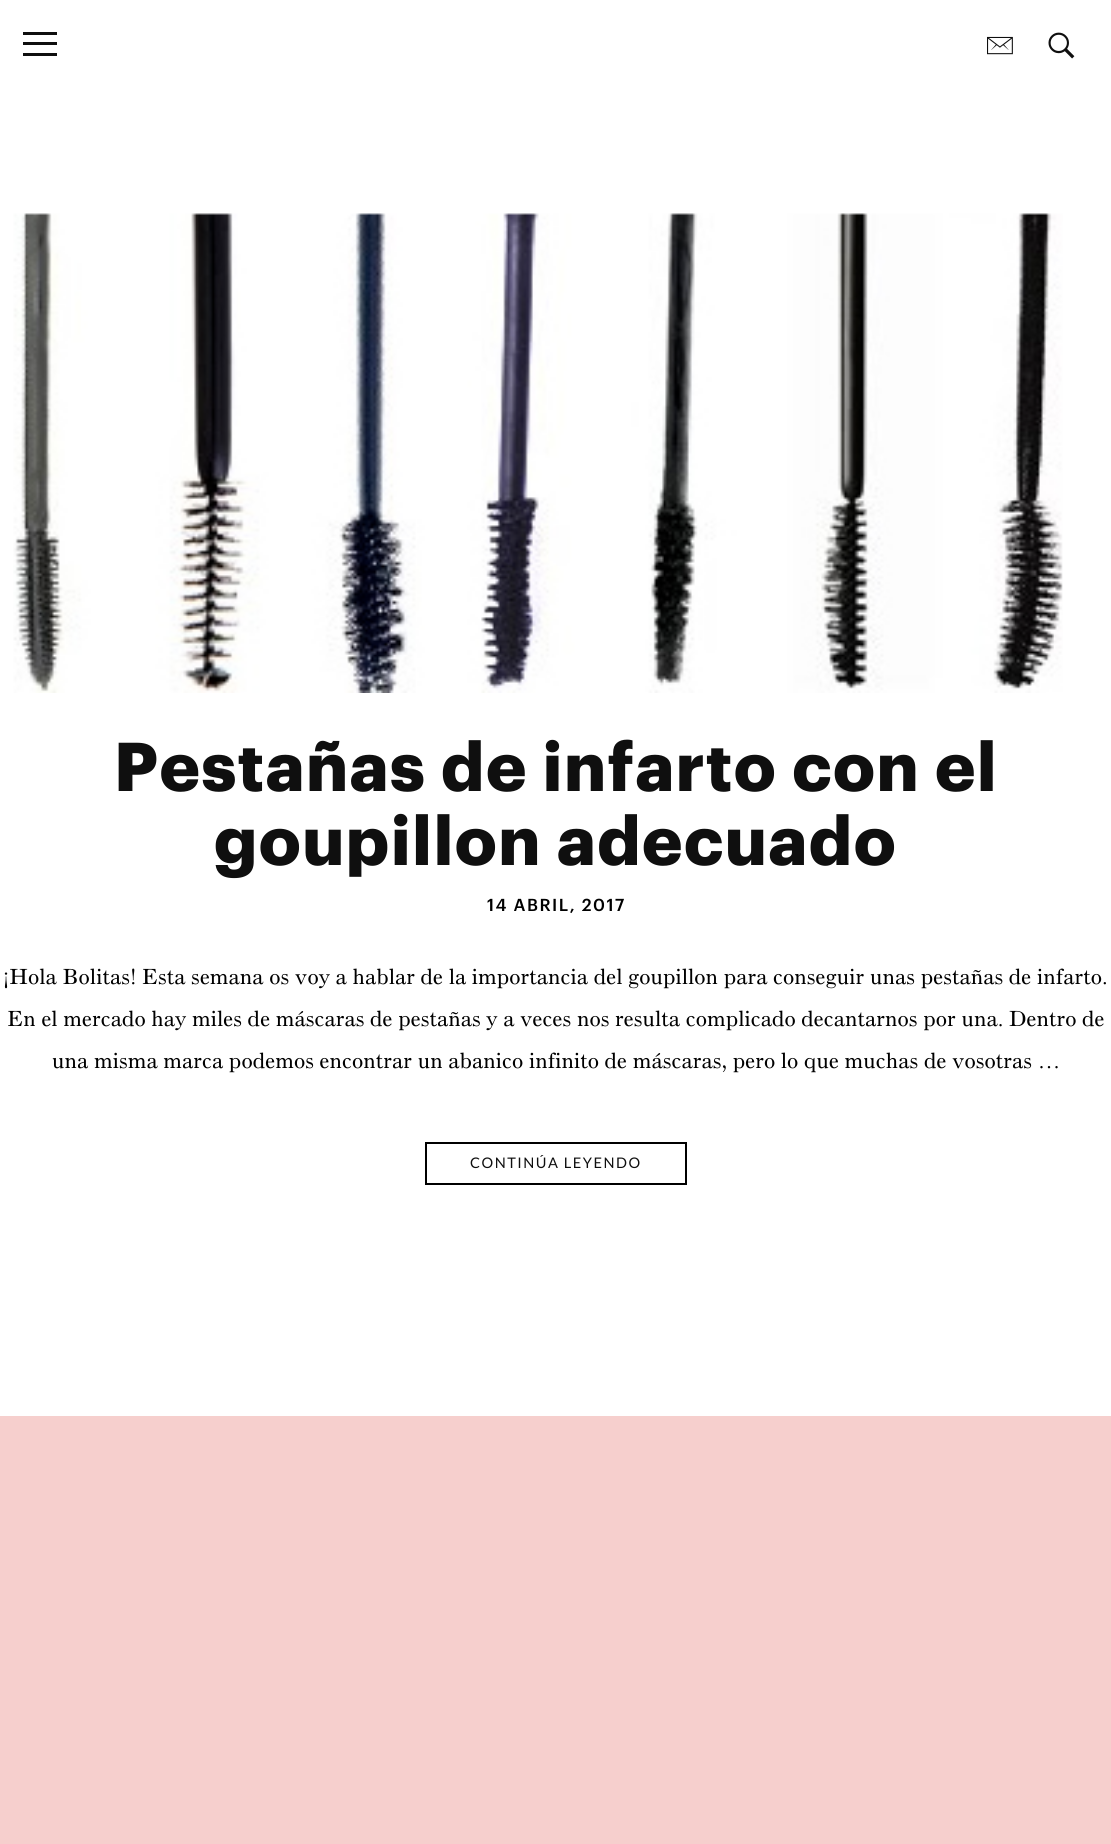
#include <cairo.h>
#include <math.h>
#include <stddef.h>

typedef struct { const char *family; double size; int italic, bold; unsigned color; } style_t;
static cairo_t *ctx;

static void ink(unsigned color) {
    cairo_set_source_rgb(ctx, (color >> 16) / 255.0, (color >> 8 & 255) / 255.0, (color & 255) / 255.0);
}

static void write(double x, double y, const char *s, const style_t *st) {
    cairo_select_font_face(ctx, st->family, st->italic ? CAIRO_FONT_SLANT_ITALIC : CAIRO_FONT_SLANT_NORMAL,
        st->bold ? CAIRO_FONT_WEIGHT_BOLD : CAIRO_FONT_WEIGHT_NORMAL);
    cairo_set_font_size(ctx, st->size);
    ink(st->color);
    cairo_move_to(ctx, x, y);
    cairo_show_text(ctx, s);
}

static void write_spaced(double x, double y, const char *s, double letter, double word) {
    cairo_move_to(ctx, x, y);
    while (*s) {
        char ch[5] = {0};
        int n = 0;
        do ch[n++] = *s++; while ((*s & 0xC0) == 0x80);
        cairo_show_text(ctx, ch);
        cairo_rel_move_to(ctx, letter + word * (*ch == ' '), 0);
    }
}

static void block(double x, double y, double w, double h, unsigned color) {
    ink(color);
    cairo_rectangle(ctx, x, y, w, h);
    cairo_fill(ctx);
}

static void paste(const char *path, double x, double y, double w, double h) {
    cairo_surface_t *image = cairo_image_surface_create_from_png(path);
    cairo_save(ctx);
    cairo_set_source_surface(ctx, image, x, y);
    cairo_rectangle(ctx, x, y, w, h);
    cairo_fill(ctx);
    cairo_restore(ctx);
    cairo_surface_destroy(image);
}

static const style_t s1 = {"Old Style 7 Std", 22.5, 0, 0, 0x000000};

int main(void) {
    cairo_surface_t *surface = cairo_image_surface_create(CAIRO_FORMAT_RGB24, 1111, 1844);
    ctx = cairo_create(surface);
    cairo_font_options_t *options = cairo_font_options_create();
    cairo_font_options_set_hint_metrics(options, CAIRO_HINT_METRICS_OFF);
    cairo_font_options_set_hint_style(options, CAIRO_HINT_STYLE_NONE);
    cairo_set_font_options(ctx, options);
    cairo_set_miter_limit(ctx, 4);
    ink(0xf6cfcd);
    cairo_paint(ctx);
    block(0, 0, 1111, 1416, 0xffffff);
    block(23, 32, 34, 3, 0x0f0f0f);
    block(23, 42, 34, 3, 0x0f0f0f);
    block(23, 53, 34, 3, 0x0f0f0f);
    paste("pic1.png", 987, 36, 26, 19);
    paste("pic2.png", 1048, 32, 27, 27);
    paste("pic3.png", 13, 213, 1050, 480);
    cairo_select_font_face(ctx, "Graphik", CAIRO_FONT_SLANT_NORMAL, CAIRO_FONT_WEIGHT_BOLD);
    cairo_set_font_size(ctx, 67.5);
    write_spaced(114, 791, "Pestañas de infarto con el", 1.5, 0);
    write_spaced(214, 865, "goupillon adecuado", 1.5, 0);
    cairo_select_font_face(ctx, "Graphik Medium", CAIRO_FONT_SLANT_NORMAL, CAIRO_FONT_WEIGHT_NORMAL);
    cairo_set_font_size(ctx, 17);
    ink(0x000000);
    write_spaced(487, 911, "14 ABRIL, 2017", 1.5, 0);
    write(3, 984, "¡Hola Bolitas! Esta semana os voy a hablar de la importancia del goupillon para conseguir unas pestañas de infarto.", &s1);
    write(7, 1026, "En el mercado hay miles de máscaras de pestañas y a veces nos resulta complicado decantarnos por una. Dentro de", &s1);
    write(52, 1068, "una misma marca podemos encontrar un abanico infinito de máscaras, pero lo que muchas de vosotras …", &s1);
    cairo_rectangle(ctx, 426, 1143, 260, 41);
    cairo_stroke(ctx);
    cairo_select_font_face(ctx, "Lato", CAIRO_FONT_SLANT_NORMAL, CAIRO_FONT_WEIGHT_NORMAL);
    cairo_set_font_size(ctx, 14.6);
    ink(0x0f0f0f);
    write_spaced(470, 1168, "CONTINÚA LEYENDO", 1.5, 0);
    cairo_surface_write_to_png(surface, "screenshot.png");
    cairo_font_options_destroy(options);
    cairo_destroy(ctx);
    cairo_surface_destroy(surface);
    return 0;
}
